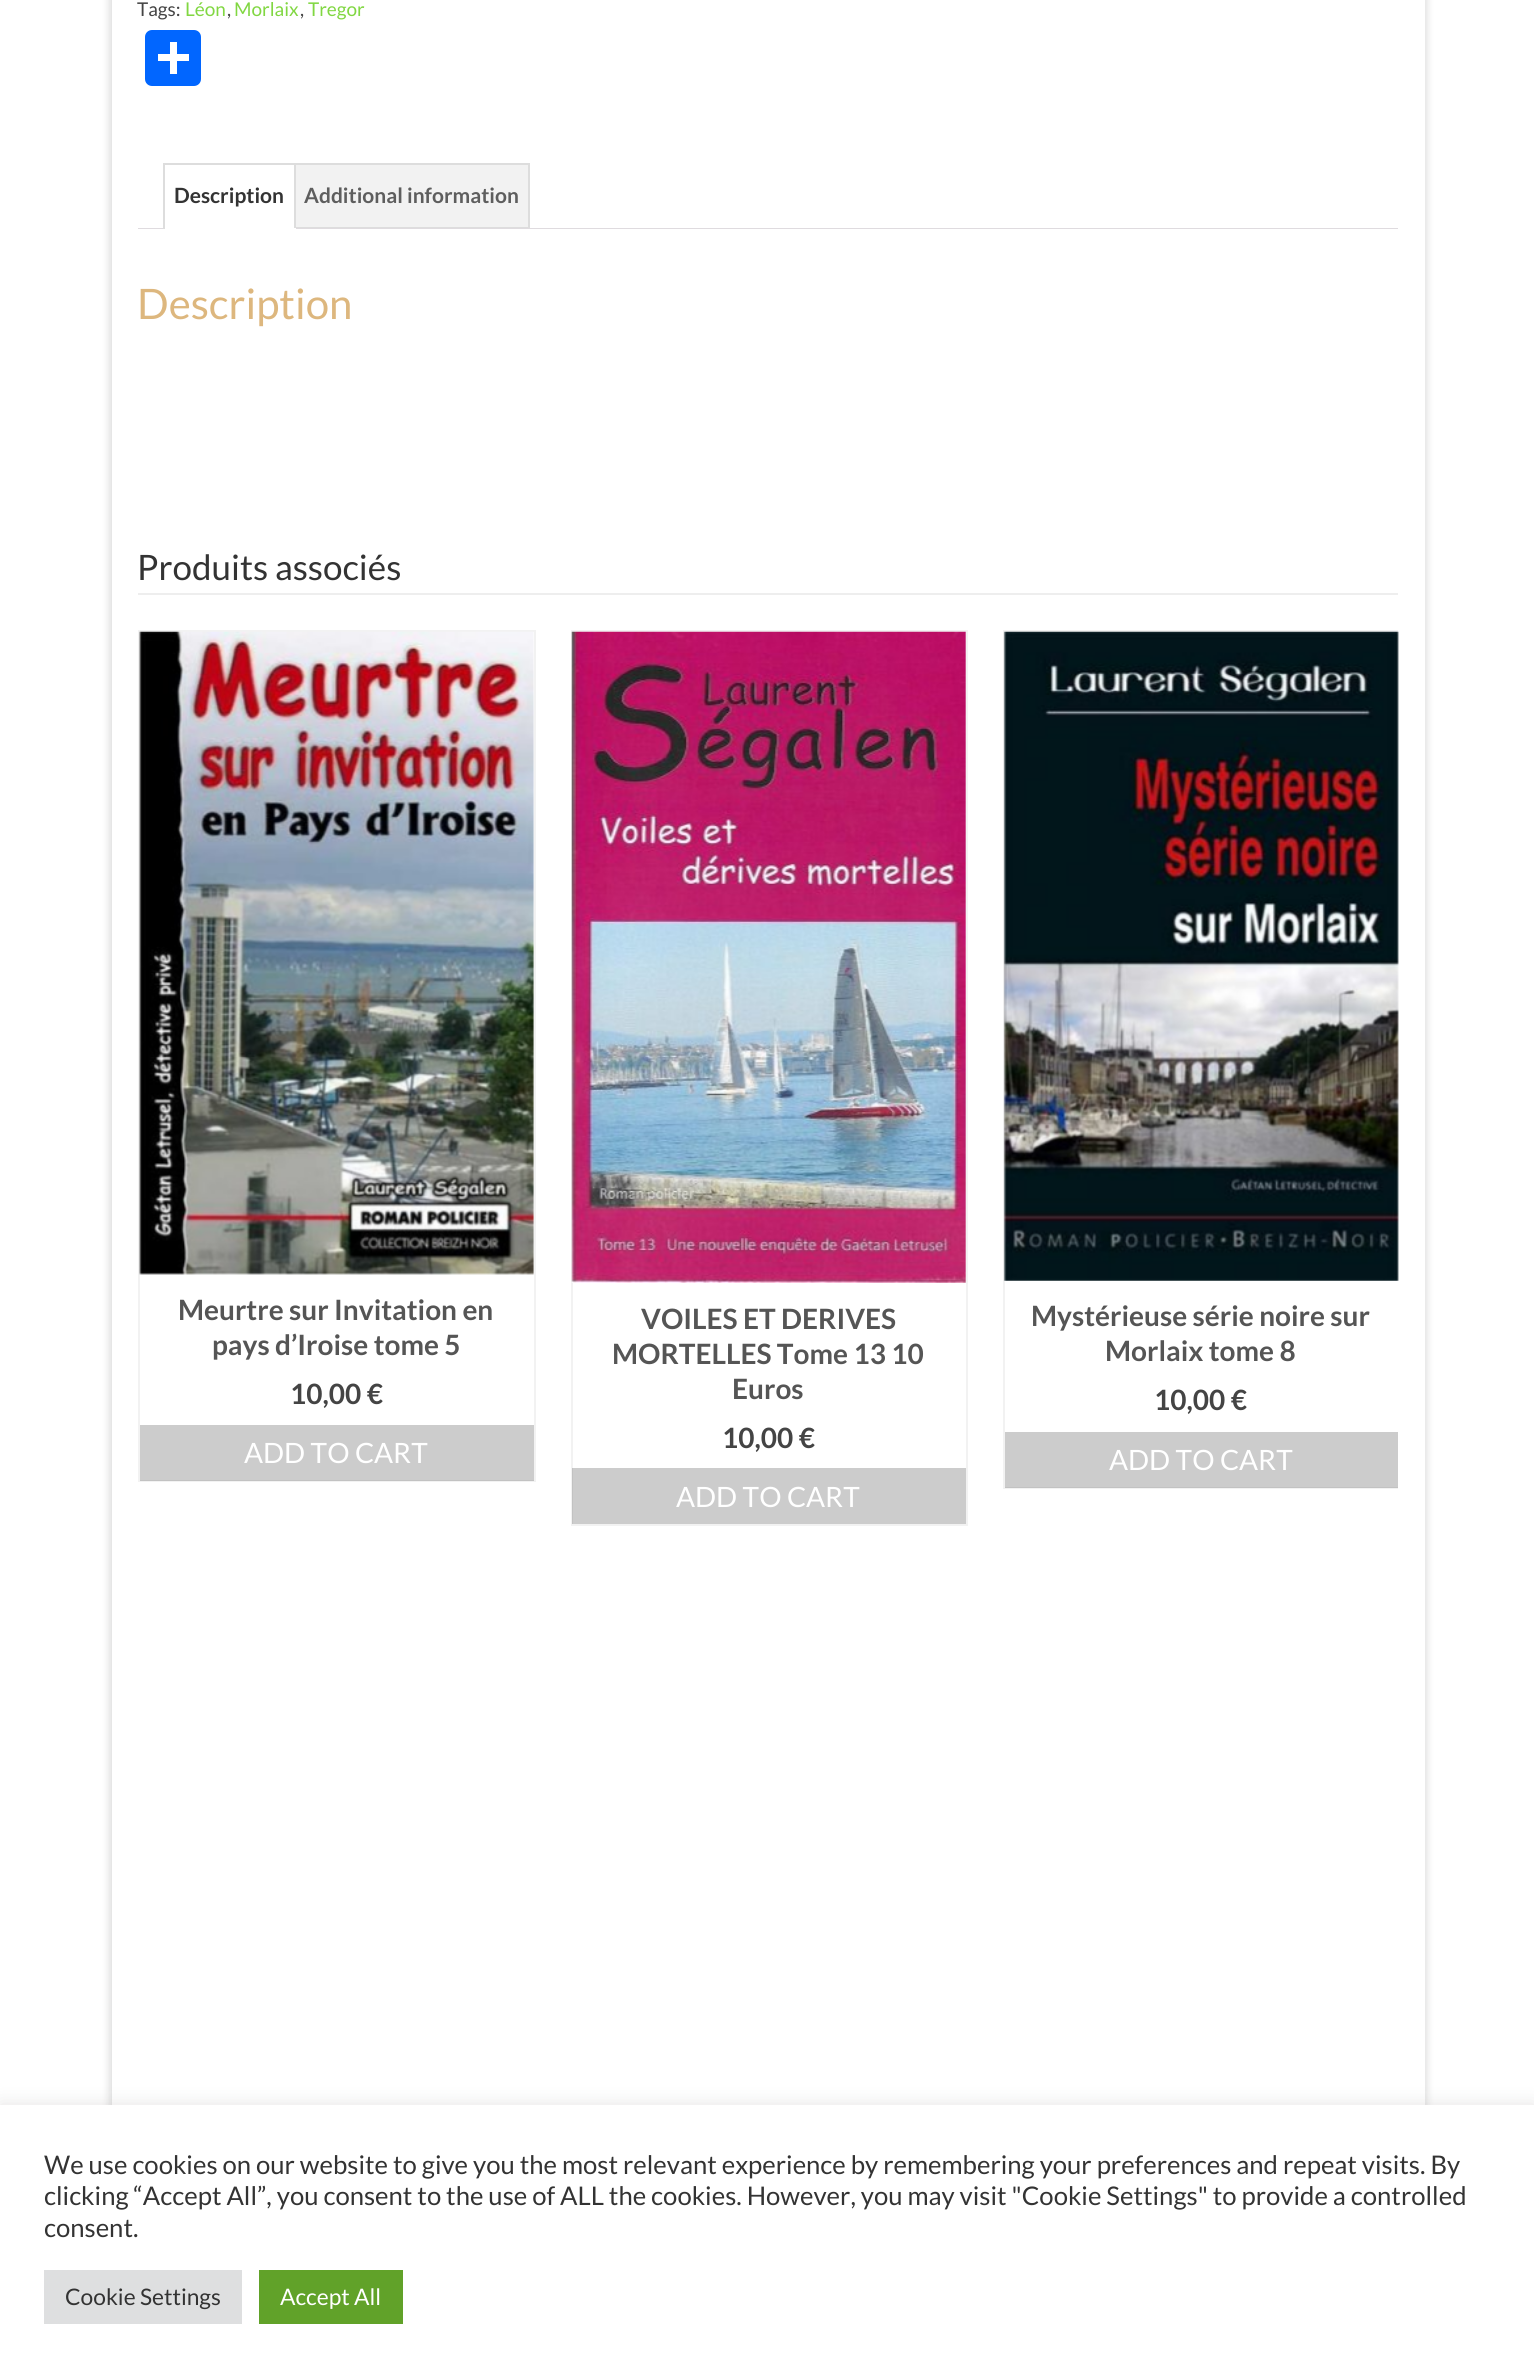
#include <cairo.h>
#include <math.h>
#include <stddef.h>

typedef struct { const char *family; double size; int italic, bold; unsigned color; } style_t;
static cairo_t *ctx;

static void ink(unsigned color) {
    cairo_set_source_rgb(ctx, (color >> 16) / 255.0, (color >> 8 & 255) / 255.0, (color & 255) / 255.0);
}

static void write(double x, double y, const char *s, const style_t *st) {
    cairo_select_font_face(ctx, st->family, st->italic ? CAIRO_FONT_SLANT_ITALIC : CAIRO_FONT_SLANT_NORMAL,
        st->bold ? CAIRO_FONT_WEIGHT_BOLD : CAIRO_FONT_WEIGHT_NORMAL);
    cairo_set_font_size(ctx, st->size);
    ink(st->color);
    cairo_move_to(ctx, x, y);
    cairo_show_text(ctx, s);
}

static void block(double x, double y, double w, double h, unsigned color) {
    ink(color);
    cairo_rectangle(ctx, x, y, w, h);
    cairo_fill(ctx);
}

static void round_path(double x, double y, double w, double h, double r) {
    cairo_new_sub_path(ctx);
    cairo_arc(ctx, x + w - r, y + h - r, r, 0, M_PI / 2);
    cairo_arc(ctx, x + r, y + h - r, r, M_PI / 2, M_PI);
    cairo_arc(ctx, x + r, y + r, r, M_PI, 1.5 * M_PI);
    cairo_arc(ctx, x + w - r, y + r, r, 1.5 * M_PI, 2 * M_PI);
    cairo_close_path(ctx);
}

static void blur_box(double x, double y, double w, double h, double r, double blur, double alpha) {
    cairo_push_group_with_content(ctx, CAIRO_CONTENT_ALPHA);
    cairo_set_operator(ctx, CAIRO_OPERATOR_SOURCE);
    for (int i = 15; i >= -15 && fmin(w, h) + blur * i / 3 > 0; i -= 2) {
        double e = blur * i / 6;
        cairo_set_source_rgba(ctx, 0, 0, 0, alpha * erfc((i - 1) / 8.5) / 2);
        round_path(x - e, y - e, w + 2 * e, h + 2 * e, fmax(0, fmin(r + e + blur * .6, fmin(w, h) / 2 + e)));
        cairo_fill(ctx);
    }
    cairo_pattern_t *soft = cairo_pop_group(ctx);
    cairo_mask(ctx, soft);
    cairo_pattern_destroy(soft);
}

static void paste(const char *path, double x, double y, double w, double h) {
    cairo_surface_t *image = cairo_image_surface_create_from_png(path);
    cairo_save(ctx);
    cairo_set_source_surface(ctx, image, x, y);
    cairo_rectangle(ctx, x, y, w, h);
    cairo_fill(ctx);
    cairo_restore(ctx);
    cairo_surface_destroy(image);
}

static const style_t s1 = {"Lato", 19, 0, 0, 0x444444};
static const style_t s2 = {"Lato", 19, 0, 0, 0x81d742};
static const style_t s3 = {"Lato", 21, 0, 1, 0x333333};
static const style_t s4 = {"Lato", 21, 0, 1, 0x5e5e5e};
static const style_t s5 = {"Lato", 42, 0, 0, 0xddb77e};
static const style_t s6 = {"Lato", 35, 0, 0, 0x333333};
static const style_t s7 = {"Lato", 28, 0, 1, 0x555555};
static const style_t s8 = {"Lato", 28, 0, 1, 0x444444};
static const style_t s9 = {"Lato", 28, 0, 0, 0xffffff};
static const style_t s10 = {"Lato", 25.67, 0, 0, 0x333333};
static const style_t s11 = {"Lato", 22.75, 0, 0, 0x333333};
static const style_t s12 = {"Lato", 22.75, 0, 0, 0xffffff};

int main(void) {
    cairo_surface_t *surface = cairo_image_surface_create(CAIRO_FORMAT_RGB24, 1534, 2375);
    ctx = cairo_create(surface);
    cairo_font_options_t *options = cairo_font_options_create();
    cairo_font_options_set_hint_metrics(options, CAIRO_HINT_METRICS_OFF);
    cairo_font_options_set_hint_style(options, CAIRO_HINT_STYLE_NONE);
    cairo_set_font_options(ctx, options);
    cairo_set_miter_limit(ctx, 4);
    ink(0xffffff);
    cairo_paint(ctx);
    ink(0x000000);
    blur_box(110, -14, 1316, 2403, 0, 4.5, 0.16);
    block(112, 0, 1313, 2105, 0xffffff);
    write(137, 16, "Tags:", &s1);
    write(185, 16, "Léon", &s2);
    write(227, 16, ",", &s1);
    write(234, 16, "Morlaix", &s2);
    write(300, 16, ",", &s1);
    write(308, 16, "Tregor", &s2);
    ink(0x0166ff);
    round_path(145, 30, 56, 56, 7);
    cairo_fill(ctx);
    block(170, 42, 7, 32, 0xffffff);
    block(158, 54, 31, 7, 0xffffff);
    block(296, 165, 232, 62, 0xf2f2f2);
    cairo_rectangle(ctx, 293, 164, 236, 64);
    ink(0xdddddd);
    cairo_stroke(ctx);
    block(292, 165, 2, 63, 0xffffff);
    block(163, 163, 133, 2, 0xdddddd);
    block(138, 228, 1260, 1, 0xdfdbdf);
    block(294, 163, 2, 66, 0xdddddd);
    block(163, 228, 133, 1, 0xffffff);
    block(163, 163, 2, 66, 0xdddddd);
    write(174, 203, "Description", &s3);
    write(304, 203, "Additional information", &s4);
    write(137, 319, "Description", &s5);
    block(138, 593, 1260, 2, 0xeeeeee);
    write(137, 580, "Produits associés", &s6);
    cairo_rectangle(ctx, 139, 631, 396, 850);
    ink(0xf2f2f2);
    cairo_stroke(ctx);
    paste("pic1.png", 139, 631, 395, 644);
    write(178, 1320, "Meurtre sur Invitation en", &s7);
    write(212, 1355, "pays d’Iroise tome 5", &s7);
    write(290, 1404, "10,00 €", &s8);
    cairo_set_source_rgba(ctx, 0, 0, 0, 0.2);
    cairo_rectangle(ctx, 140, 1425, 394, 56);
    cairo_fill(ctx);
    write(244, 1463, "ADD TO CART", &s9);
    cairo_rectangle(ctx, 572, 631, 395, 894);
    ink(0xf2f2f2);
    cairo_stroke(ctx);
    paste("pic2.png", 571, 631, 395, 652);
    write(641, 1329, "VOILES ET DERIVES", &s7);
    write(612, 1364, "MORTELLES Tome 13 10", &s7);
    write(732, 1399, "Euros", &s7);
    write(722, 1448, "10,00 €", &s8);
    cairo_set_source_rgba(ctx, 0, 0, 0, 0.2);
    cairo_rectangle(ctx, 572, 1468, 394, 56);
    cairo_fill(ctx);
    write(676, 1507, "ADD TO CART", &s9);
    cairo_save(ctx);
    cairo_rectangle(ctx, 138, 630, 1260, 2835);
    cairo_clip(ctx);
    cairo_rectangle(ctx, 1004, 631, 395, 857);
    ink(0xf2f2f2);
    cairo_stroke(ctx);
    cairo_restore(ctx);
    paste("pic3.png", 1003, 631, 396, 650);
    write(1031, 1326, "Mystérieuse série noire sur", &s7);
    write(1105, 1361, "Morlaix tome 8", &s7);
    write(1154, 1410, "10,00 €", &s8);
    cairo_set_source_rgba(ctx, 0, 0, 0, 0.2);
    cairo_rectangle(ctx, 1005, 1432, 393, 56);
    cairo_fill(ctx);
    write(1109, 1470, "ADD TO CART", &s9);
    ink(0xacabab);
    blur_box(0, 2104, 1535, 271, 0, 9, 0.3);
    block(0, 2105, 1534, 270, 0xffffff);
    write(44, 2174, "We use cookies on our website to give you the most relevant experience by remembering your preferences and repeat visits. By", &s10);
    write(44, 2205, "clicking “Accept All”, you consent to the use of ALL the cookies. However, you may visit \"Cookie Settings\" to provide a controlled", &s10);
    write(44, 2237, "consent.", &s10);
    block(44, 2270, 198, 54, 0xdedfe0);
    write(65, 2305, "Cookie Settings", &s11);
    block(259, 2270, 144, 54, 0x61a229);
    write(280, 2305, "Accept All", &s12);
    cairo_surface_write_to_png(surface, "screenshot.png");
    cairo_font_options_destroy(options);
    cairo_destroy(ctx);
    cairo_surface_destroy(surface);
    return 0;
}
